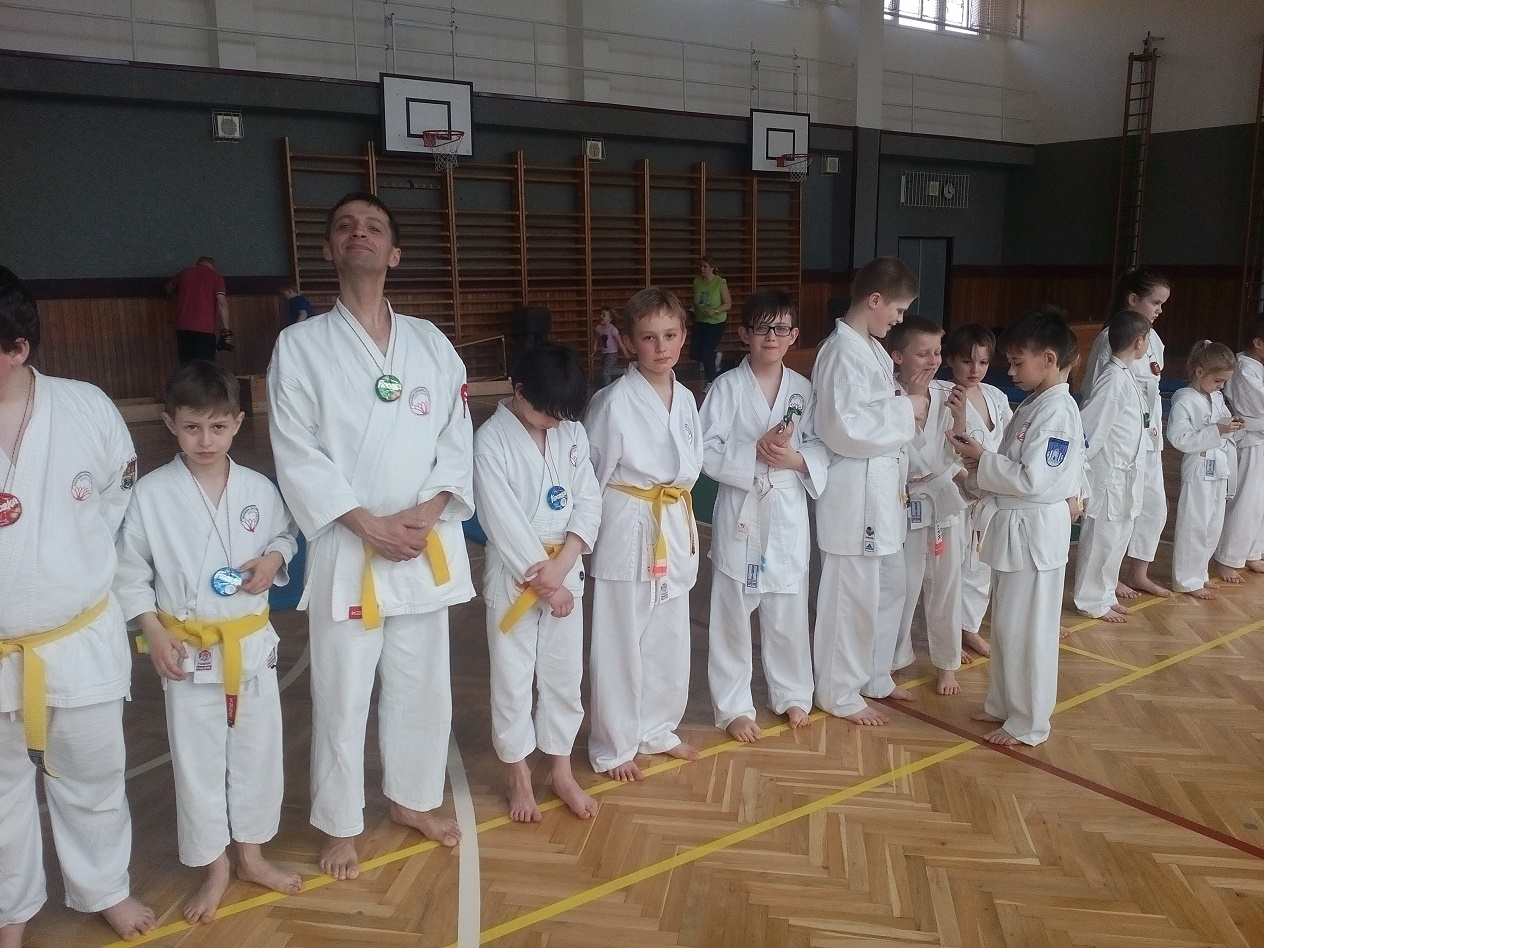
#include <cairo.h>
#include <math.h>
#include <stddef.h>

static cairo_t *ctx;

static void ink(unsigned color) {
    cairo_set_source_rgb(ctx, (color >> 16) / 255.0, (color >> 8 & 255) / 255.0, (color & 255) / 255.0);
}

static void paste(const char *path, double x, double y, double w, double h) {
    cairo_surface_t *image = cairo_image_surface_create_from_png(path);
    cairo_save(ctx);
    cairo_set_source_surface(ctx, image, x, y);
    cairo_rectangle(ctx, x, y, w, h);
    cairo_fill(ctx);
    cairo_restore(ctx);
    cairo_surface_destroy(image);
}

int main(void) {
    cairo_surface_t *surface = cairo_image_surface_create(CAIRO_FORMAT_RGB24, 1513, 948);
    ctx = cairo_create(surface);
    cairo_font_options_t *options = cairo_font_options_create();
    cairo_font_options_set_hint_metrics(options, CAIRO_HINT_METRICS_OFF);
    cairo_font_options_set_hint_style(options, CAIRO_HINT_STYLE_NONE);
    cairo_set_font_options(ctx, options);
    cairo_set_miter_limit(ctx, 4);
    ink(0xffffff);
    cairo_paint(ctx);
    paste("pic1.png", 0, 0, 1264, 948);
    cairo_surface_write_to_png(surface, "screenshot.png");
    cairo_font_options_destroy(options);
    cairo_destroy(ctx);
    cairo_surface_destroy(surface);
    return 0;
}
